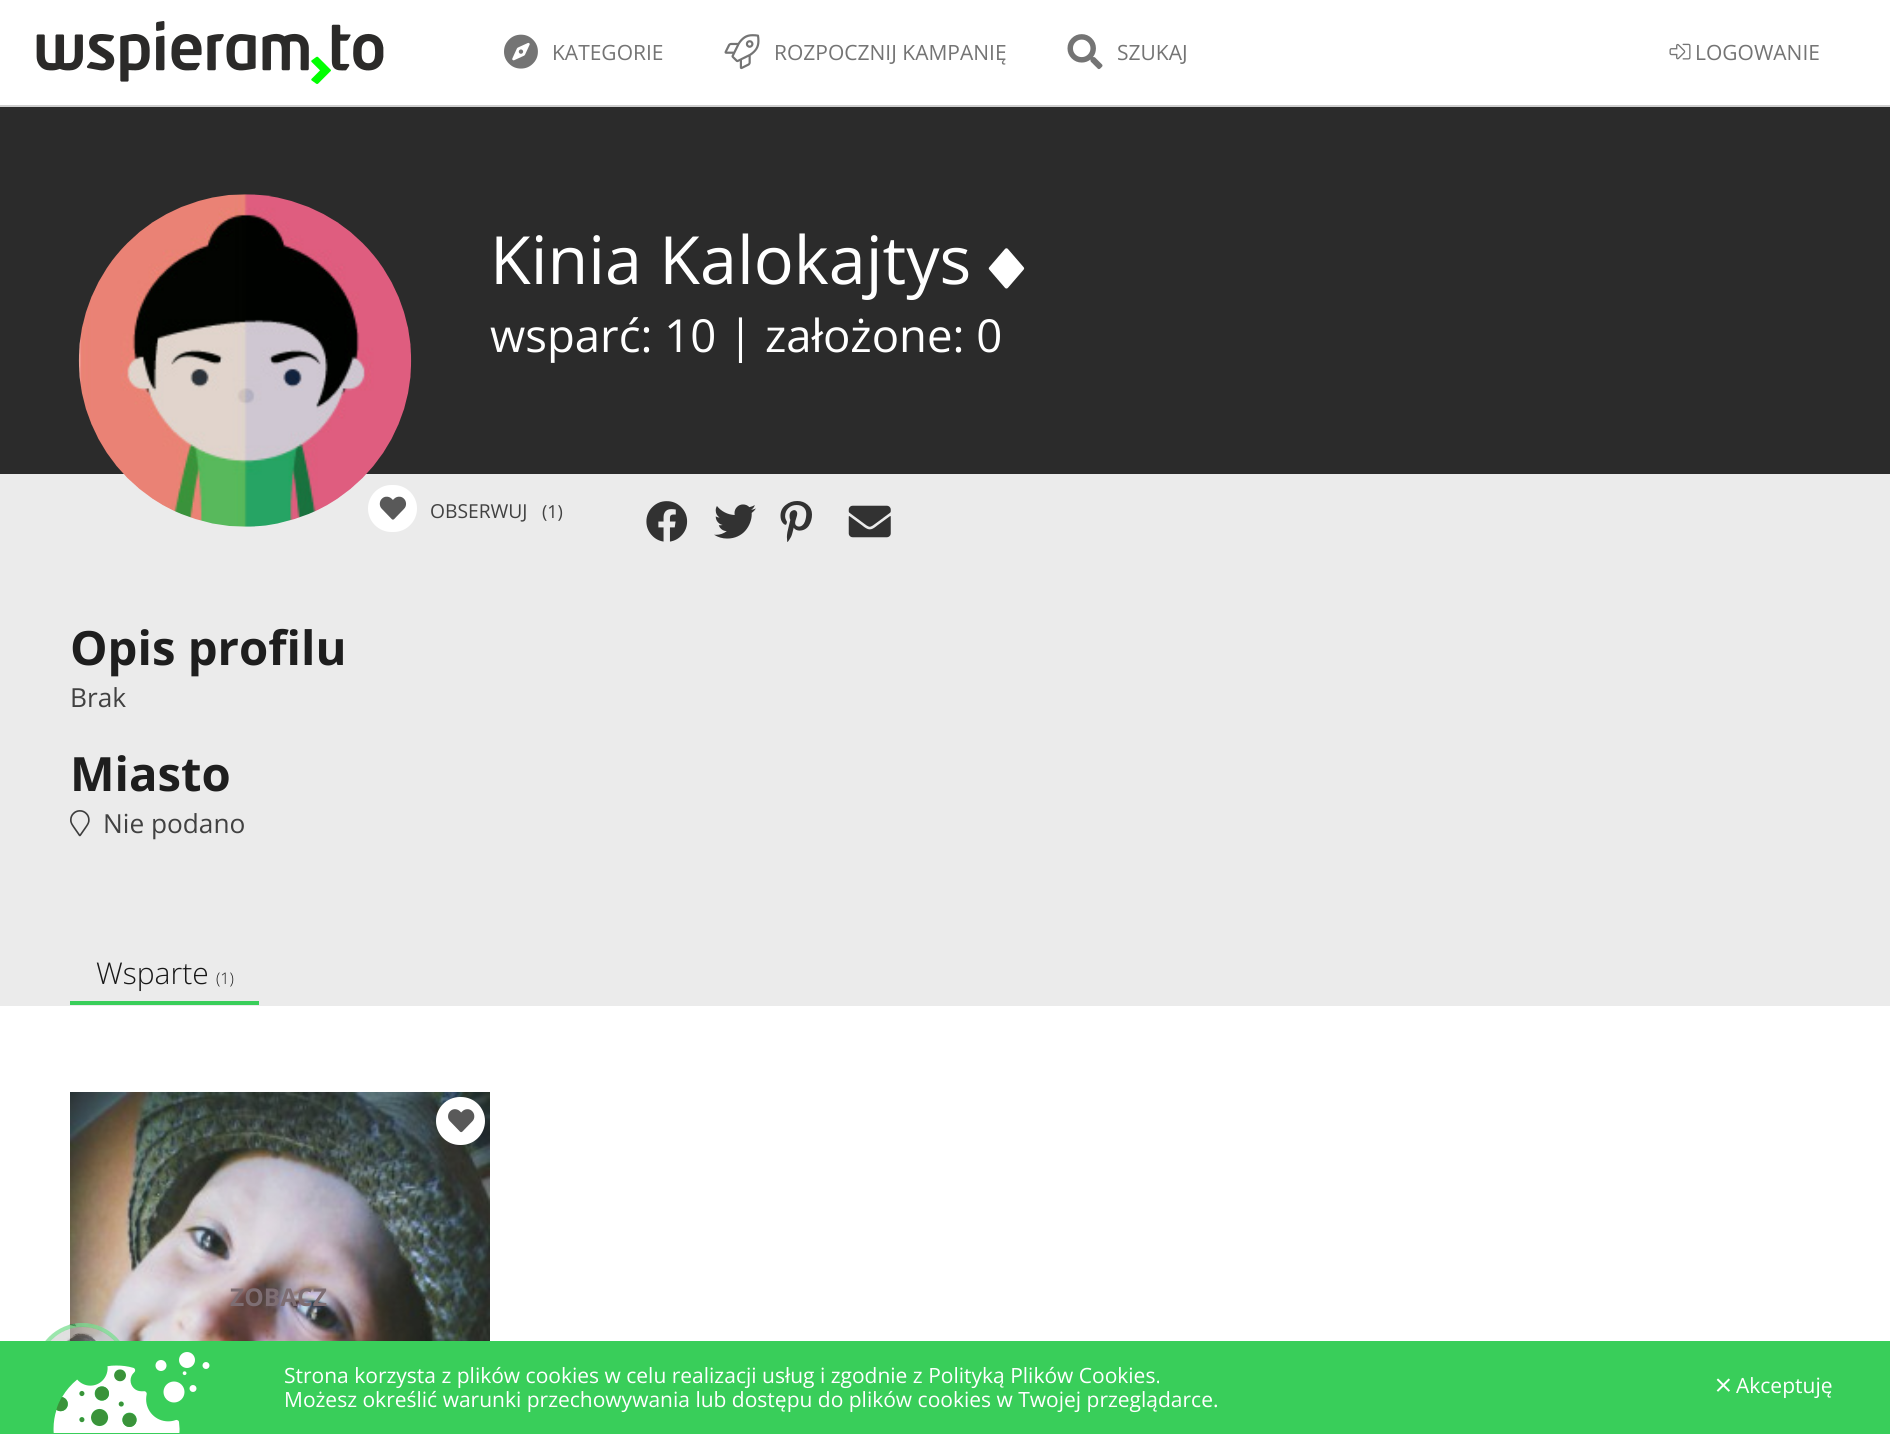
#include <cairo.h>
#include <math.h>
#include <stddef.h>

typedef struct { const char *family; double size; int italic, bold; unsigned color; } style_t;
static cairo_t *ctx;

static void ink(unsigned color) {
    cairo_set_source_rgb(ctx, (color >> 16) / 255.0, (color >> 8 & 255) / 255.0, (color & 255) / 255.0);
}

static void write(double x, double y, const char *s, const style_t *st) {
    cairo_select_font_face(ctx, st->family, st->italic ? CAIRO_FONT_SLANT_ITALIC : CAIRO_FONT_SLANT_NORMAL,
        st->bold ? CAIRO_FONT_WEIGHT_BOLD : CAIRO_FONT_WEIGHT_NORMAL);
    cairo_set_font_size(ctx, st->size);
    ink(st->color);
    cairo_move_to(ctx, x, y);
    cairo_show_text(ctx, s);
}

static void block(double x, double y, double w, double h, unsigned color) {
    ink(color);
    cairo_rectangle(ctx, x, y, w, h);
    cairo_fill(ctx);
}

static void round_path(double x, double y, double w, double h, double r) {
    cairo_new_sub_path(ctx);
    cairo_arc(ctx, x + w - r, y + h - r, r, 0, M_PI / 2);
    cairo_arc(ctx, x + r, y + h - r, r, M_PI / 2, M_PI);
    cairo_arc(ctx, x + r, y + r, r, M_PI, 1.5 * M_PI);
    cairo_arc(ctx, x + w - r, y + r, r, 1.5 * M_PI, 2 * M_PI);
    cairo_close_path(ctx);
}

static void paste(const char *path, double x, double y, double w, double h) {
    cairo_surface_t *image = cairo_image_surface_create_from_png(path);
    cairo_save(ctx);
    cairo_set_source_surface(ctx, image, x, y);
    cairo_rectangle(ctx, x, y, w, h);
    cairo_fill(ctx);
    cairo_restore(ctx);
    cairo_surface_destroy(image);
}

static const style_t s1 = {"Open Sans", 21, 0, 0, 0x747474};
static const style_t s2 = {"Open Sans", 66.5, 0, 0, 0xffffff};
static const style_t s3 = {"Open Sans", 45.5, 0, 0, 0xffffff};
static const style_t s4 = {"Open Sans", 19.25, 0, 0, 0x414141};
static const style_t s5 = {"Open Sans", 18, 0, 0, 0x414141};
static const style_t s6 = {"Open Sans", 47.25, 0, 1, 0x1e1e1e};
static const style_t s7 = {"Open Sans", 26.25, 0, 0, 0x414141};
static const style_t s8 = {"Open Sans Light", 30, 0, 0, 0x181818};
static const style_t s9 = {"Open Sans Light", 16, 0, 0, 0x181818};
static const style_t s10 = {"Open Sans", 24.5, 0, 1, 0x7e6e73};
static const style_t s11 = {"Open Sans", 21, 0, 0, 0xffffff};

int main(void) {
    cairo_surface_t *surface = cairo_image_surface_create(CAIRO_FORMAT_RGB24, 1890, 1434);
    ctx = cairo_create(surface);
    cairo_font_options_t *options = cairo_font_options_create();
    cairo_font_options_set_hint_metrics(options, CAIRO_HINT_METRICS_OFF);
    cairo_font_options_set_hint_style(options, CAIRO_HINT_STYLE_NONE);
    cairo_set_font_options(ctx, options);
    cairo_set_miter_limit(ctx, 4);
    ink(0xffffff);
    cairo_paint(ctx);
    block(0, 105, 1890, 2, 0xcfcfcf);
    paste("pic1.png", 36, 21, 348, 63);
    paste("pic2.png", 504, 34, 34, 35);
    write(552, 60, "KATEGORIE", &s1);
    paste("pic3.png", 724, 34, 36, 36);
    write(774, 60, "ROZPOCZNIJ KAMPANIĘ", &s1);
    paste("pic4.png", 1067, 34, 36, 36);
    write(1117, 60, "SZUKAJ", &s1);
    paste("pic5.png", 1669, 43, 22, 17);
    write(1695, 60, "LOGOWANIE", &s1);
    block(0, 107, 1890, 367, 0x2b2b2b);
    block(0, 474, 1890, 532, 0xebebeb);
    paste("pic6.png", 78, 194, 334, 333);
    write(490, 284, "Kinia Kalokajtys", &s2);
    paste("pic7.png", 988, 248, 37, 41);
    write(490, 352, "wsparć: 10 | założone: 0", &s3);
    round_path(368, 485, 49, 47, 23.5);
    cairo_fill(ctx);
    paste("pic8.png", 379, 496, 28, 24);
    write(430, 518, "OBSERWUJ", &s4);
    write(542, 518, "(1)", &s5);
    paste("pic9.png", 646, 501, 42, 41);
    paste("pic10.png", 714, 504, 42, 35);
    paste("pic11.png", 780, 501, 32, 41);
    paste("pic12.png", 848, 505, 43, 33);
    write(70, 665, "Opis profilu", &s6);
    write(70, 707, "Brak", &s7);
    write(70, 791, "Miasto", &s6);
    paste("pic13.png", 70, 810, 20, 27);
    write(103, 833, "Nie podano", &s7);
    block(70, 1001, 189, 4, 0x39ce5a);
    write(96, 984, "Wsparte", &s8);
    write(216, 984, "(1)", &s9);
    paste("pic14.png", 70, 1092, 420, 249);
    ink(0xffffff);
    round_path(436, 1097, 49, 48, 24);
    cairo_fill(ctx);
    paste("pic15.png", 448, 1109, 27, 24);
    write(230, 1306, "ZOBACZ", &s10);
    paste("pic16.png", 45, 1323, 75, 18);
    cairo_arc(ctx, 82.5, 1370.5, 45.5, 0, 2 * M_PI);
    cairo_set_source_rgba(ctx, 0.224, 0.808, 0.353, 0.5);
    cairo_set_line_width(ctx, 4);
    cairo_stroke(ctx);
    block(0, 1341, 1890, 93, 0x39ce5a);
    paste("pic17.png", 53, 1352, 157, 81);
    write(284, 1383, "Strona korzysta z plików cookies w celu realizacji usług i zgodnie z Polityką Plików Cookies.", &s11);
    write(284, 1407, "Możesz określić warunki przechowywania lub dostępu do plików cookies w Twojej przeglądarce.", &s11);
    paste("pic18.png", 1716, 1378, 14, 14);
    write(1736, 1393, "Akceptuję", &s11);
    cairo_surface_write_to_png(surface, "screenshot.png");
    cairo_font_options_destroy(options);
    cairo_destroy(ctx);
    cairo_surface_destroy(surface);
    return 0;
}
